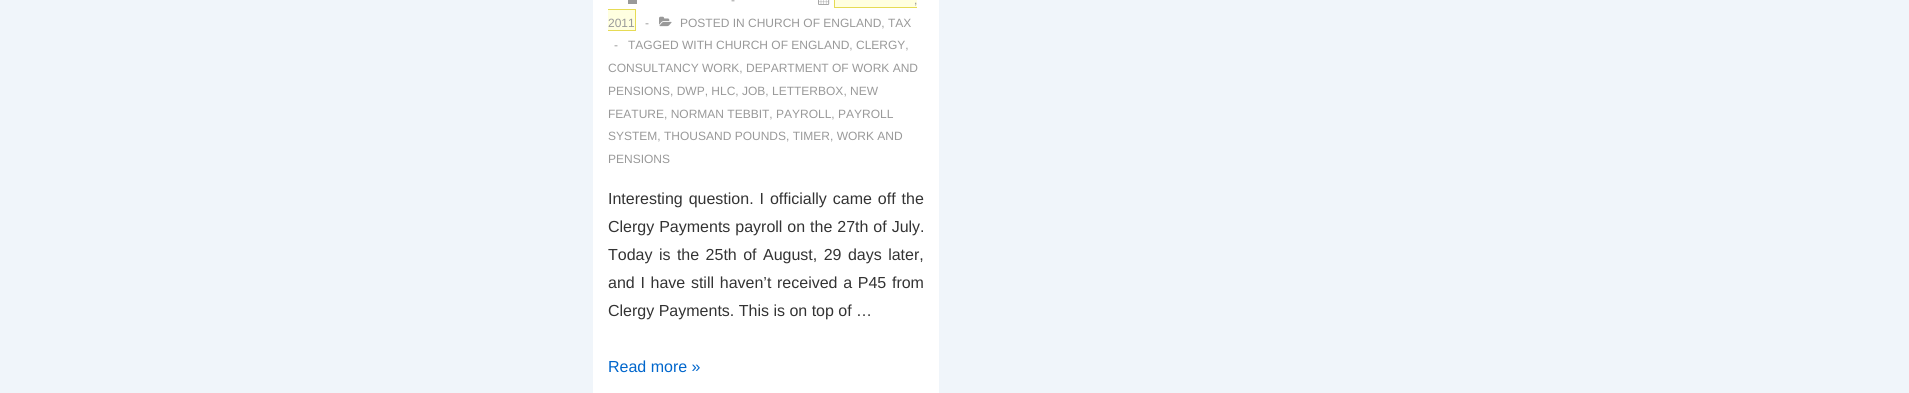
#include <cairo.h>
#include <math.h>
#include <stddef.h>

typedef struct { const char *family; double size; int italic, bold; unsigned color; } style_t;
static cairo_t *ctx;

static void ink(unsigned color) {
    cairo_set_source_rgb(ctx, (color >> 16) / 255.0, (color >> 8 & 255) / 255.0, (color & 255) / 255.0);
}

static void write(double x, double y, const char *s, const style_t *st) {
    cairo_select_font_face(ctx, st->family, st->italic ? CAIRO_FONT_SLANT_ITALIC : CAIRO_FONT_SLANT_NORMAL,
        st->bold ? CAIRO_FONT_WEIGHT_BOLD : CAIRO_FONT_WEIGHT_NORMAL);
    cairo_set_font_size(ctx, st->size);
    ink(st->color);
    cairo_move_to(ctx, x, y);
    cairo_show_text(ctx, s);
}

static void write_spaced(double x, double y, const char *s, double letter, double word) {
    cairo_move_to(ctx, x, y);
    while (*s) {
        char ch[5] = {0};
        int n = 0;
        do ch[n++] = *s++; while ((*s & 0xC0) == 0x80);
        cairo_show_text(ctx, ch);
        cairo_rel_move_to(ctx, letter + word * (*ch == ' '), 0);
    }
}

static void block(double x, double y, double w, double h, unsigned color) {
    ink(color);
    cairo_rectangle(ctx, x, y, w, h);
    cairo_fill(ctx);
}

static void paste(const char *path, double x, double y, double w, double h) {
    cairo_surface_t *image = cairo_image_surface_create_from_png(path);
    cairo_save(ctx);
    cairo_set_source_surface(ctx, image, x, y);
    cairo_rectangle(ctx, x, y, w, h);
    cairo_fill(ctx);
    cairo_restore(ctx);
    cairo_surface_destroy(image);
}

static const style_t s1 = {"Liberation Sans", 12, 0, 0, 0x999999};
static const style_t s2 = {"Liberation Sans", 16, 0, 0, 0x333333};
static const style_t s3 = {"Liberation Sans", 16, 0, 0, 0x0066cc};

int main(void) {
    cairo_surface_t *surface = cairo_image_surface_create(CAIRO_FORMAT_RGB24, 1909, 393);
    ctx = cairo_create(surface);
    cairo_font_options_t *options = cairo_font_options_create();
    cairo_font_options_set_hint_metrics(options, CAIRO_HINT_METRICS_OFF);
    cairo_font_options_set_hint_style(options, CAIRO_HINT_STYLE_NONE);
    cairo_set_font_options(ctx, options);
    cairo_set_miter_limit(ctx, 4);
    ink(0xf0f5fa);
    cairo_paint(ctx);
    block(593, 0, 346, 393, 0xffffff);
    write(731, 4, "-", &s1);
    block(628, 0, 9, 4, 0x999999);
    paste("pic1.png", 818, 0, 12, 5);
    block(834, 0, 83, 7, 0xffffe0);
    write(914, 4, ",", &s1);
    block(834, 7, 83, 1, 0xe6db55);
    block(834, 0, 1, 8, 0xe6db55);
    block(608, 10, 27, 20, 0xffffe0);
    write(608, 27, "2011", &s1);
    block(608, 9, 28, 1, 0xe6db55);
    block(635, 9, 1, 22, 0xe6db55);
    block(608, 30, 28, 1, 0xe6db55);
    write(645, 27, "-", &s1);
    paste("pic2.png", 659, 16, 13, 11);
    write(680, 27, "POSTED IN CHURCH OF ENGLAND, TAX", &s1);
    write(614, 49, "-", &s1);
    write(628, 49, "TAGGED WITH CHURCH OF ENGLAND, CLERGY,", &s1);
    write(608, 72, "CONSULTANCY WORK, DEPARTMENT OF WORK AND", &s1);
    write(608, 95, "PENSIONS, DWP, HLC, JOB, LETTERBOX, NEW", &s1);
    write(608, 118, "FEATURE, NORMAN TEBBIT, PAYROLL, PAYROLL", &s1);
    write(608, 140, "SYSTEM, THOUSAND POUNDS, TIMER, WORK AND", &s1);
    write(608, 163, "PENSIONS", &s1);
    cairo_set_font_size(ctx, 16);
    ink(0x333333);
    write_spaced(608, 204, "Interesting question. I officially came off the", 0, 1.5);
    write_spaced(608, 232, "Clergy Payments payroll on the 27th of July.", 0, 0.5);
    write_spaced(608, 260, "Today is the 25th of August, 29 days later,", 0, 2);
    write_spaced(608, 288, "and I have still haven’t received a P45 from", 0, 1.25);
    write(608, 316, "Clergy Payments. This is on top of …", &s2);
    write(608, 372, "Read more »", &s3);
    cairo_surface_write_to_png(surface, "screenshot.png");
    cairo_font_options_destroy(options);
    cairo_destroy(ctx);
    cairo_surface_destroy(surface);
    return 0;
}
